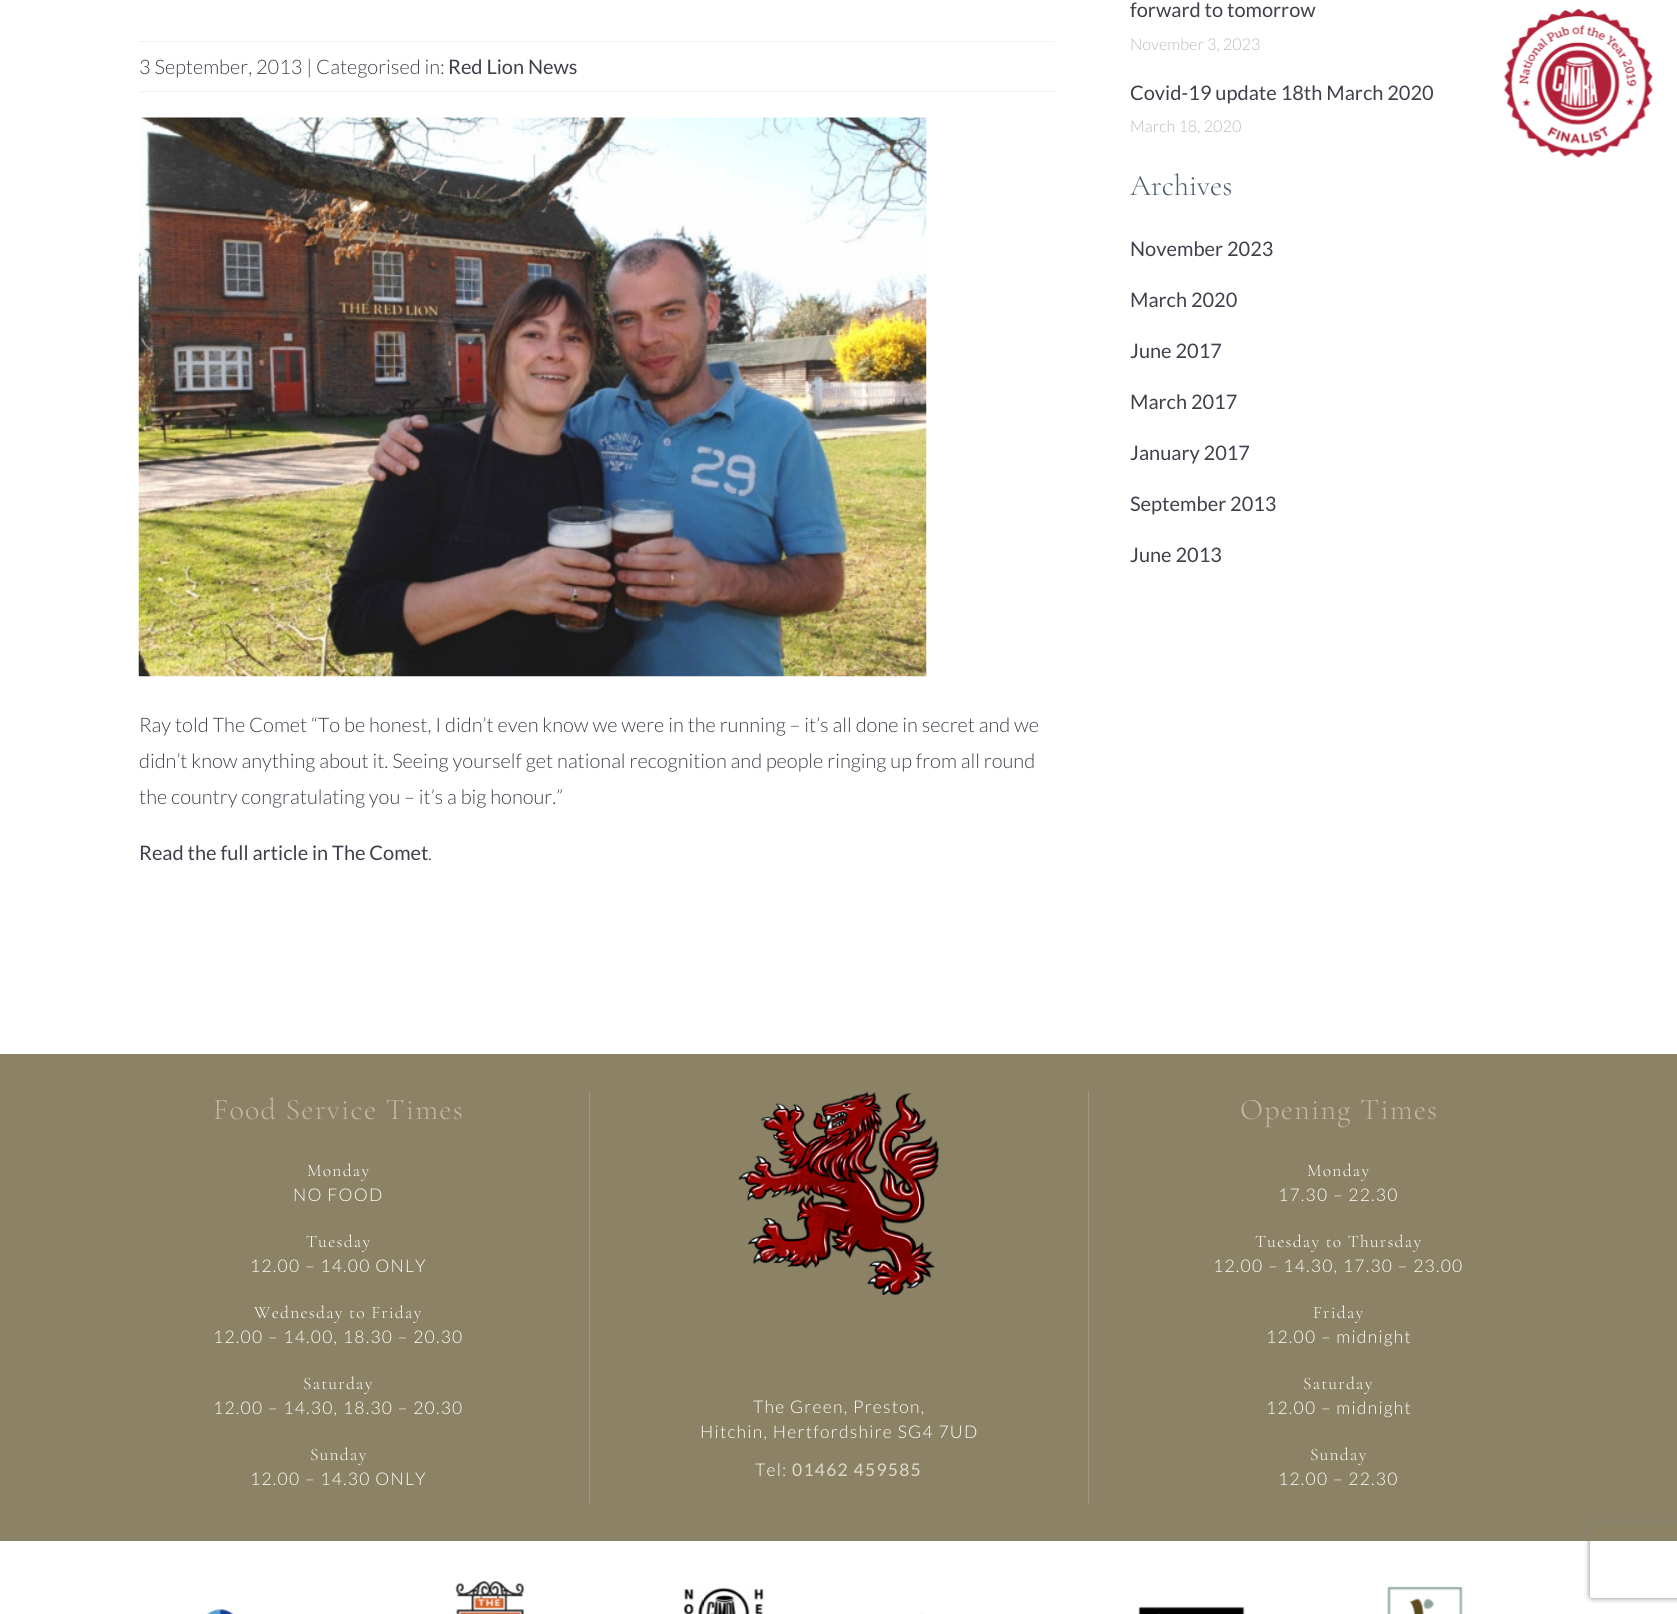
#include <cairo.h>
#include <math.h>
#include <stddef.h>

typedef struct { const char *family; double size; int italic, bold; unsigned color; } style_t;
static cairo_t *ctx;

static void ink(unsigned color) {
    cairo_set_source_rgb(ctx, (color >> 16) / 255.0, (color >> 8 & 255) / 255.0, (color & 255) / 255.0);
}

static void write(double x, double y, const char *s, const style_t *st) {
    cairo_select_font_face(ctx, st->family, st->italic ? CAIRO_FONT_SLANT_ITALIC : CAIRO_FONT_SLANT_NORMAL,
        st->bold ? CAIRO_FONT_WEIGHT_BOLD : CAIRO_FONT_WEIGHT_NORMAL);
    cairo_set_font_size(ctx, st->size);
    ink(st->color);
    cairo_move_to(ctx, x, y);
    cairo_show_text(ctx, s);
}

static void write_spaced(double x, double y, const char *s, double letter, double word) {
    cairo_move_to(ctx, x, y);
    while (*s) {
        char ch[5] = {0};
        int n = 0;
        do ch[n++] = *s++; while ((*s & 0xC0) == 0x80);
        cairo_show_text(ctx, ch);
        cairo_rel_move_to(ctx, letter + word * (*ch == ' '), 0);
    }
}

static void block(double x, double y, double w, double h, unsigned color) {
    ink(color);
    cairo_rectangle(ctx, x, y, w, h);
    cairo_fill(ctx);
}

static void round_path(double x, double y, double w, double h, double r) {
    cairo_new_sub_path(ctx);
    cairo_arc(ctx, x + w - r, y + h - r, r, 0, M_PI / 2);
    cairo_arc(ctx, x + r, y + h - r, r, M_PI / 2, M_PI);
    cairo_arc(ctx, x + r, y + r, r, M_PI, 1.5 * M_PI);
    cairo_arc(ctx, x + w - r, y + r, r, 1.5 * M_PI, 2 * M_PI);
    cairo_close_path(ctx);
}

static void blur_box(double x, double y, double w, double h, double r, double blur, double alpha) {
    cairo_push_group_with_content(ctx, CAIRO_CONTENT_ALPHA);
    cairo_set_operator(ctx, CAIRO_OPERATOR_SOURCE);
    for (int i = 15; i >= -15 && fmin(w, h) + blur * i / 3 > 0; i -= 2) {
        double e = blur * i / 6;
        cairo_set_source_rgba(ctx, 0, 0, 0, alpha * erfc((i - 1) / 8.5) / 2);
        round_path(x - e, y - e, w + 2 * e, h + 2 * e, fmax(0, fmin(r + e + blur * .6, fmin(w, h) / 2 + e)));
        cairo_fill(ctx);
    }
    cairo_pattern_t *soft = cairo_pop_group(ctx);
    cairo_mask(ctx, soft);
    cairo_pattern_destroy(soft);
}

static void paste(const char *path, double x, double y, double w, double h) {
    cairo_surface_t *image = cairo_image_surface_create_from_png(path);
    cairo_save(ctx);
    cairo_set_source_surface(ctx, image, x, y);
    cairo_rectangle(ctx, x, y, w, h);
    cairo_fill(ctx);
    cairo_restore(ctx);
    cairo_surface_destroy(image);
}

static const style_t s1 = {"Lato Light", 20, 0, 0, 0x403f4c};
static const style_t s2 = {"Lato", 20, 0, 0, 0x403f4c};
static const style_t s3 = {"Lato Light", 16.25, 0, 0, 0xbbbbbb};
static const style_t s4 = {"Cormorant Garamond Light", 30, 0, 0, 0x4d5c6d};

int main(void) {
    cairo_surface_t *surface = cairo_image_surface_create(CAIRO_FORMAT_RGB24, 1677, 1614);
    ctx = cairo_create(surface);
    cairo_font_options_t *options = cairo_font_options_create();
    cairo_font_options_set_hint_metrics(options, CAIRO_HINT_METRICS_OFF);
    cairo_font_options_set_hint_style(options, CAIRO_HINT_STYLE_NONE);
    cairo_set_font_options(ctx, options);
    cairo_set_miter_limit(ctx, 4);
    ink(0xffffff);
    cairo_paint(ctx);
    block(139, 41, 916, 1, 0xf2f2f2);
    block(139, 91, 916, 1, 0xf2f2f2);
    write(139, 74, "3 September, 2013 | Categorised in:", &s1);
    write(448, 74, "Red Lion News", &s2);
    paste("pic1.png", 138, 117, 789, 560);
    write(139, 732, "Ray told The Comet “To be honest, I didn’t even know we were in the running – it’s all done in secret and we", &s1);
    write(139, 768, "didn’t know anything about it. Seeing yourself get national recognition and people ringing up from all round", &s1);
    write(139, 804, "the country congratulating you – it’s a big honour.”", &s1);
    write(139, 860, "Read the full article in The Comet", &s2);
    write(428, 860, ".", &s1);
    write(1130, 17, "forward to tomorrow", &s2);
    write(1130, 50, "November 3, 2023", &s3);
    write(1130, 100, "Covid-19 update 18th March 2020", &s2);
    write(1130, 132, "March 18, 2020", &s3);
    write(1130, 195, "Archives", &s4);
    write(1130, 256, "November 2023", &s2);
    write(1130, 307, "March 2020", &s2);
    write(1130, 358, "June 2017", &s2);
    write(1130, 409, "March 2017", &s2);
    write(1130, 460, "January 2017", &s2);
    write(1130, 511, "September 2013", &s2);
    write(1130, 562, "June 2013", &s2);
    paste("pic2.png", 1504, 8, 149, 150);
    block(0, 1054, 1677, 487, 0x8c8265);
    cairo_select_font_face(ctx, "Cormorant Garamond Light", CAIRO_FONT_SLANT_NORMAL, CAIRO_FONT_WEIGHT_NORMAL);
    cairo_set_font_size(ctx, 30);
    ink(0xc0b9a6);
    write_spaced(213, 1119, "Food Service Times", 1.25, 0);
    cairo_set_font_size(ctx, 17.5);
    ink(0xffffff);
    write_spaced(307, 1176, "Monday", 1.25, 0);
    cairo_select_font_face(ctx, "Lato Light", CAIRO_FONT_SLANT_NORMAL, CAIRO_FONT_WEIGHT_NORMAL);
    write_spaced(293, 1201, "NO FOOD", 1.25, 0);
    cairo_select_font_face(ctx, "Cormorant Garamond Light", CAIRO_FONT_SLANT_NORMAL, CAIRO_FONT_WEIGHT_NORMAL);
    write_spaced(306, 1247, "Tuesday", 1.25, 0);
    cairo_select_font_face(ctx, "Lato Light", CAIRO_FONT_SLANT_NORMAL, CAIRO_FONT_WEIGHT_NORMAL);
    write_spaced(250, 1272, "12.00 – 14.00 ONLY", 1.25, 0);
    cairo_select_font_face(ctx, "Cormorant Garamond Light", CAIRO_FONT_SLANT_NORMAL, CAIRO_FONT_WEIGHT_NORMAL);
    write_spaced(254, 1318, "Wednesday to Friday", 1.25, 0);
    cairo_select_font_face(ctx, "Lato Light", CAIRO_FONT_SLANT_NORMAL, CAIRO_FONT_WEIGHT_NORMAL);
    write_spaced(213, 1343, "12.00 – 14.00, 18.30 – 20.30", 1.25, 0);
    cairo_select_font_face(ctx, "Cormorant Garamond Light", CAIRO_FONT_SLANT_NORMAL, CAIRO_FONT_WEIGHT_NORMAL);
    write_spaced(303, 1389, "Saturday", 1.25, 0);
    cairo_select_font_face(ctx, "Lato Light", CAIRO_FONT_SLANT_NORMAL, CAIRO_FONT_WEIGHT_NORMAL);
    write_spaced(213, 1414, "12.00 – 14.30, 18.30 – 20.30", 1.25, 0);
    cairo_select_font_face(ctx, "Cormorant Garamond Light", CAIRO_FONT_SLANT_NORMAL, CAIRO_FONT_WEIGHT_NORMAL);
    write_spaced(310, 1460, "Sunday", 1.25, 0);
    cairo_select_font_face(ctx, "Lato Light", CAIRO_FONT_SLANT_NORMAL, CAIRO_FONT_WEIGHT_NORMAL);
    write_spaced(250, 1485, "12.00 – 14.30 ONLY", 1.25, 0);
    block(1088, 1091, 1, 413, 0xa1977e);
    block(589, 1091, 1, 413, 0xa1977e);
    paste("pic3.png", 738, 1091, 201, 204);
    ink(0xffffff);
    write_spaced(753, 1413, "The Green, Preston,", 1.25, 0);
    write_spaced(700, 1438, "Hitchin, Hertfordshire SG4 7UD", 1.25, 0);
    write_spaced(755, 1476, "Tel:", 1.25, 0);
    cairo_select_font_face(ctx, "Lato", CAIRO_FONT_SLANT_NORMAL, CAIRO_FONT_WEIGHT_NORMAL);
    ink(0xdfdacc);
    write_spaced(792, 1476, "01462 459585", 1.25, 0);
    cairo_select_font_face(ctx, "Cormorant Garamond Light", CAIRO_FONT_SLANT_NORMAL, CAIRO_FONT_WEIGHT_NORMAL);
    cairo_set_font_size(ctx, 30);
    ink(0xc0b9a6);
    write_spaced(1240, 1119, "Opening Times", 1.25, 0);
    cairo_set_font_size(ctx, 17.5);
    ink(0xffffff);
    write_spaced(1307, 1176, "Monday", 1.25, 0);
    cairo_select_font_face(ctx, "Lato Light", CAIRO_FONT_SLANT_NORMAL, CAIRO_FONT_WEIGHT_NORMAL);
    write_spaced(1278, 1201, "17.30 – 22.30", 1.25, 0);
    cairo_select_font_face(ctx, "Cormorant Garamond Light", CAIRO_FONT_SLANT_NORMAL, CAIRO_FONT_WEIGHT_NORMAL);
    write_spaced(1255, 1247, "Tuesday to Thursday", 1.25, 0);
    cairo_select_font_face(ctx, "Lato Light", CAIRO_FONT_SLANT_NORMAL, CAIRO_FONT_WEIGHT_NORMAL);
    write_spaced(1213, 1272, "12.00 – 14.30, 17.30 – 23.00", 1.25, 0);
    cairo_select_font_face(ctx, "Cormorant Garamond Light", CAIRO_FONT_SLANT_NORMAL, CAIRO_FONT_WEIGHT_NORMAL);
    write_spaced(1313, 1318, "Friday", 1.25, 0);
    cairo_select_font_face(ctx, "Lato Light", CAIRO_FONT_SLANT_NORMAL, CAIRO_FONT_WEIGHT_NORMAL);
    write_spaced(1266, 1343, "12.00 – midnight", 1.25, 0);
    cairo_select_font_face(ctx, "Cormorant Garamond Light", CAIRO_FONT_SLANT_NORMAL, CAIRO_FONT_WEIGHT_NORMAL);
    write_spaced(1303, 1389, "Saturday", 1.25, 0);
    cairo_select_font_face(ctx, "Lato Light", CAIRO_FONT_SLANT_NORMAL, CAIRO_FONT_WEIGHT_NORMAL);
    write_spaced(1266, 1414, "12.00 – midnight", 1.25, 0);
    cairo_select_font_face(ctx, "Cormorant Garamond Light", CAIRO_FONT_SLANT_NORMAL, CAIRO_FONT_WEIGHT_NORMAL);
    write_spaced(1310, 1460, "Sunday", 1.25, 0);
    cairo_select_font_face(ctx, "Lato Light", CAIRO_FONT_SLANT_NORMAL, CAIRO_FONT_WEIGHT_NORMAL);
    write_spaced(1278, 1485, "12.00 – 22.30", 1.25, 0);
    paste("pic4.png", 207, 1609, 27, 5);
    paste("pic5.png", 455, 1581, 70, 33);
    paste("pic6.png", 683, 1587, 81, 27);
    block(920, 1613, 6, 1, 0xf9f9f9);
    paste("pic7.png", 1138, 1606, 107, 8);
    paste("pic8.png", 1387, 1586, 76, 28);
    cairo_save(ctx);
    cairo_set_fill_rule(ctx, CAIRO_FILL_RULE_EVEN_ODD);
    cairo_new_path(ctx);
    cairo_move_to(ctx, 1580, 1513);
    cairo_line_to(ctx, 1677, 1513);
    cairo_line_to(ctx, 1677, 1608);
    cairo_line_to(ctx, 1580, 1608);
    cairo_close_path(ctx);
    cairo_move_to(ctx, 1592.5, 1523);
    cairo_line_to(ctx, 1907.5, 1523);
    cairo_curve_to(ctx, 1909, 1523, 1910, 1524, 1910, 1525.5);
    cairo_line_to(ctx, 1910, 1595.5);
    cairo_curve_to(ctx, 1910, 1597, 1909, 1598, 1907.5, 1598);
    cairo_line_to(ctx, 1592.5, 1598);
    cairo_curve_to(ctx, 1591, 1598, 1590, 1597, 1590, 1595.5);
    cairo_line_to(ctx, 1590, 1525.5);
    cairo_curve_to(ctx, 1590, 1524, 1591, 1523, 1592.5, 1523);
    cairo_close_path(ctx);
    cairo_clip(ctx);
    ink(0x808080);
    blur_box(1590, 1523, 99, 75, 2.5, 3, 1);
    cairo_restore(ctx);
    cairo_surface_write_to_png(surface, "screenshot.png");
    cairo_font_options_destroy(options);
    cairo_destroy(ctx);
    cairo_surface_destroy(surface);
    return 0;
}
